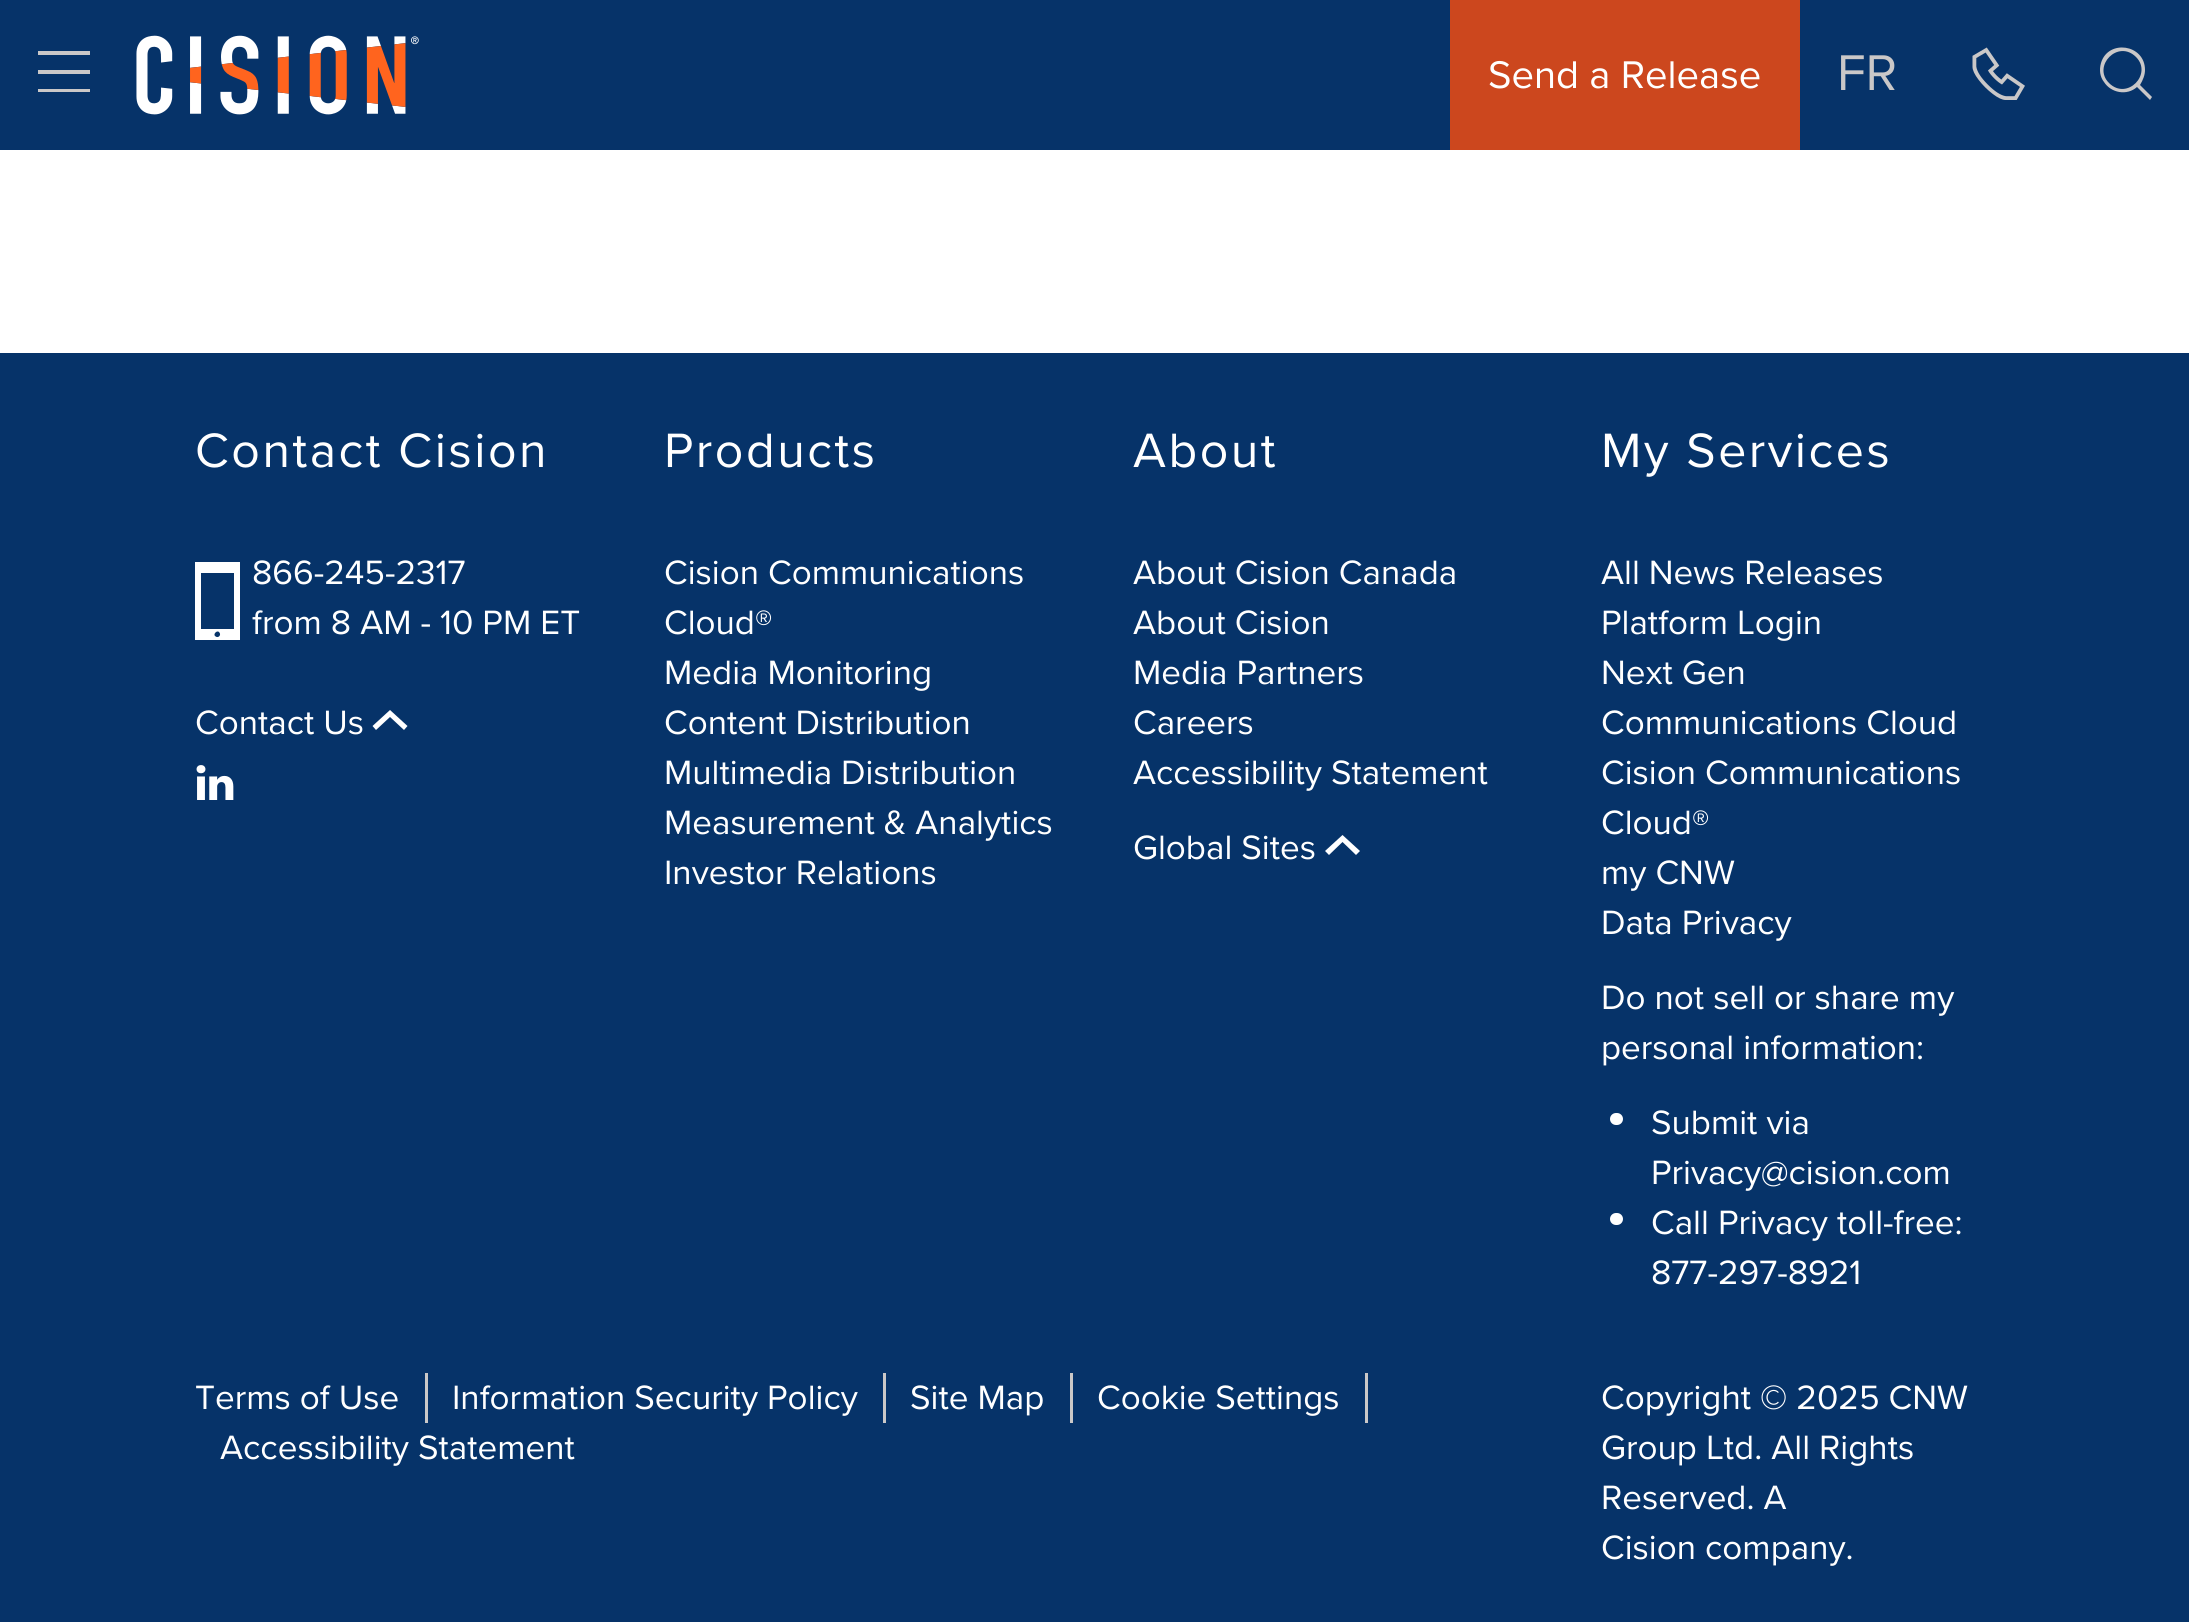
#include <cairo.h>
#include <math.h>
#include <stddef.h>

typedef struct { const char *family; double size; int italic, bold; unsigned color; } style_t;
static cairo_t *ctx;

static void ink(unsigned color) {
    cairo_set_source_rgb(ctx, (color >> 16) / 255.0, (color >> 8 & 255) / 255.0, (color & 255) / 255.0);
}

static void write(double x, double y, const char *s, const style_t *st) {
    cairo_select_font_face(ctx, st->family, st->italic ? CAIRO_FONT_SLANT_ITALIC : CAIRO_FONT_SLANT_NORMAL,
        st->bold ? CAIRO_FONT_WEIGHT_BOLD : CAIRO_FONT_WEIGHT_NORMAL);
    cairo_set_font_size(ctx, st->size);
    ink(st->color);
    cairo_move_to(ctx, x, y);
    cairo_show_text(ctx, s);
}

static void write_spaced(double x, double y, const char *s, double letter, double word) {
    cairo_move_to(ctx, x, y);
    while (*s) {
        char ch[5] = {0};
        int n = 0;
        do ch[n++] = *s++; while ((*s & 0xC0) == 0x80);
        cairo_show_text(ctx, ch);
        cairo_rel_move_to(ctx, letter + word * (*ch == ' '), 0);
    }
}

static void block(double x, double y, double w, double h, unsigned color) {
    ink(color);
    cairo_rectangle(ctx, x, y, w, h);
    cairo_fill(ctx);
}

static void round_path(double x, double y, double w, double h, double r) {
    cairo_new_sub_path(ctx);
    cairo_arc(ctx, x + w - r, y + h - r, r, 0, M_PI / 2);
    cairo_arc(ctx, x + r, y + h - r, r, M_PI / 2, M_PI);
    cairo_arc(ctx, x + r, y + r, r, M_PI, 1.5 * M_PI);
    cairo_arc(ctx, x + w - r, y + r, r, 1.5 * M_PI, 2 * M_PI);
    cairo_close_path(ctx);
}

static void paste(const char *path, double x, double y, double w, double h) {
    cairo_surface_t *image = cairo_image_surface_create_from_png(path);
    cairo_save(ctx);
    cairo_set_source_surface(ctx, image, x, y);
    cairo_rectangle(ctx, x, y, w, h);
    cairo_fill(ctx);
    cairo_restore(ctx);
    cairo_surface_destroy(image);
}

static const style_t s1 = {"Proxima Nova", 40, 0, 0, 0xffffff};
static const style_t s2 = {"Proxima Nova", 52, 0, 0, 0xcac8c8};
static const style_t s3 = {"Proxima Nova", 35, 0, 0, 0xffffff};

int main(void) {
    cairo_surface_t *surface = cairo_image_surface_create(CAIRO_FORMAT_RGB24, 2189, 1622);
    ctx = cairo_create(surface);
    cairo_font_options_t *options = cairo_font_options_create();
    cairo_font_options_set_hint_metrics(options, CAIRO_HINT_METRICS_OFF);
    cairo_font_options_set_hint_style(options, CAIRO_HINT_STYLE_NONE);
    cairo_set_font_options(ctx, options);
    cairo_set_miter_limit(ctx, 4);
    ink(0xffffff);
    cairo_paint(ctx);
    block(0, 0, 2189, 150, 0x063369);
    ink(0xcac8c8);
    cairo_new_path(ctx);
    cairo_move_to(ctx, 90, 70);
    cairo_line_to(ctx, 90, 74);
    cairo_line_to(ctx, 38, 74);
    cairo_line_to(ctx, 38, 70);
    cairo_close_path(ctx);
    cairo_move_to(ctx, 90, 89);
    cairo_line_to(ctx, 90, 92);
    cairo_line_to(ctx, 38, 92);
    cairo_line_to(ctx, 38, 89);
    cairo_close_path(ctx);
    cairo_move_to(ctx, 90, 51);
    cairo_line_to(ctx, 90, 55);
    cairo_line_to(ctx, 38, 55);
    cairo_line_to(ctx, 38, 51);
    cairo_close_path(ctx);
    cairo_fill(ctx);
    paste("pic1.png", 136, 35, 283, 80);
    block(1450, 0, 350, 150, 0xcc471e);
    write(1488, 88, "Send a Release", &s1);
    write(1837, 90, "FR", &s2);
    paste("pic2.png", 1972, 47, 53, 53);
    cairo_new_path(ctx);
    cairo_move_to(ctx, 2152, 97);
    cairo_line_to(ctx, 2150, 100);
    cairo_line_to(ctx, 2137, 87);
    cairo_curve_to(ctx, 2127, 96, 2111, 93, 2104, 82);
    cairo_curve_to(ctx, 2100, 77, 2099, 70, 2101, 63);
    cairo_curve_to(ctx, 2108, 39, 2145, 44, 2145, 70);
    cairo_curve_to(ctx, 2145, 75, 2143, 80, 2140, 85);
    cairo_close_path(ctx);
    cairo_move_to(ctx, 2109, 83);
    cairo_curve_to(ctx, 2127, 101, 2153, 74, 2136, 57);
    cairo_curve_to(ctx, 2118, 39, 2092, 66, 2109, 83);
    cairo_close_path(ctx);
    cairo_fill(ctx);
    block(0, 353, 2189, 1269, 0x063369);
    cairo_set_font_size(ctx, 50);
    ink(0xffffff);
    write_spaced(195, 467, "Contact Cision", 2.5, 0);
    cairo_new_path(ctx);
    cairo_move_to(ctx, 195, 562);
    cairo_line_to(ctx, 240, 562);
    cairo_line_to(ctx, 240, 640);
    cairo_line_to(ctx, 195, 640);
    cairo_close_path(ctx);
    cairo_move_to(ctx, 215, 636);
    cairo_curve_to(ctx, 218, 639, 222, 635, 219, 632);
    cairo_curve_to(ctx, 217, 630, 213, 634, 215, 636);
    cairo_close_path(ctx);
    cairo_move_to(ctx, 234, 629);
    cairo_line_to(ctx, 234, 573);
    cairo_line_to(ctx, 201, 573);
    cairo_line_to(ctx, 201, 629);
    cairo_close_path(ctx);
    cairo_fill(ctx);
    write(252, 584, "866-245-2317", &s3);
    write(252, 634, "from 8 AM - 10 PM ET", &s3);
    write(195, 734, "Contact Us", &s3);
    cairo_new_path(ctx);
    cairo_move_to(ctx, 390, 710);
    cairo_line_to(ctx, 407.5, 726);
    cairo_line_to(ctx, 404, 730);
    cairo_line_to(ctx, 390, 717);
    cairo_line_to(ctx, 376, 730);
    cairo_line_to(ctx, 372.5, 726);
    cairo_close_path(ctx);
    cairo_fill(ctx);
    paste("pic3.png", 196, 765, 38, 35);
    cairo_set_font_size(ctx, 50);
    write_spaced(664, 467, "Products", 2.5, 0);
    write(664, 584, "Cision Communications", &s3);
    write(664, 634, "Cloud®", &s3);
    write(664, 684, "Media Monitoring", &s3);
    write(664, 734, "Content Distribution", &s3);
    write(664, 784, "Multimedia Distribution", &s3);
    write(664, 834, "Measurement & Analytics", &s3);
    write(664, 884, "Investor Relations", &s3);
    cairo_set_font_size(ctx, 50);
    write_spaced(1133, 467, "About", 2.5, 0);
    write(1133, 584, "About Cision Canada", &s3);
    write(1133, 634, "About Cision", &s3);
    write(1133, 684, "Media Partners", &s3);
    write(1133, 734, "Careers", &s3);
    write(1133, 784, "Accessibility Statement", &s3);
    write(1133, 859, "Global Sites", &s3);
    cairo_new_path(ctx);
    cairo_move_to(ctx, 1342.5, 835);
    cairo_line_to(ctx, 1360, 851);
    cairo_line_to(ctx, 1356, 855);
    cairo_line_to(ctx, 1342.5, 842);
    cairo_line_to(ctx, 1329, 855);
    cairo_line_to(ctx, 1325, 851);
    cairo_close_path(ctx);
    cairo_fill(ctx);
    cairo_set_font_size(ctx, 50);
    write_spaced(1601, 467, "My Services", 2.5, 0);
    write(1601, 584, "All News Releases", &s3);
    write(1601, 634, "Platform Login", &s3);
    write(1601, 684, "Next Gen", &s3);
    write(1601, 734, "Communications Cloud", &s3);
    write(1601, 784, "Cision Communications", &s3);
    write(1601, 834, "Cloud®", &s3);
    write(1601, 884, "my CNW", &s3);
    write(1601, 934, "Data Privacy", &s3);
    write(1601, 1009, "Do not sell or share my", &s3);
    write(1601, 1059, "personal information:", &s3);
    round_path(1610, 1113, 13, 12, 6);
    cairo_fill(ctx);
    write(1651, 1134, "Submit via", &s3);
    write(1651, 1184, "Privacy@cision.com", &s3);
    round_path(1610, 1213, 13, 12, 6);
    cairo_fill(ctx);
    write(1651, 1234, "Call Privacy toll-free:", &s3);
    write(1651, 1284, "877-297-8921", &s3);
    block(425, 1373, 3, 50, 0xcac8c8);
    write(195, 1409, "Terms of Use", &s3);
    block(883, 1373, 3, 50, 0xcac8c8);
    write(452, 1409, "Information Security Policy", &s3);
    block(1070, 1373, 3, 50, 0xcac8c8);
    write(910, 1409, "Site Map", &s3);
    block(1365, 1373, 3, 50, 0xcac8c8);
    write(1097, 1409, "Cookie Settings", &s3);
    write(220, 1459, "Accessibility Statement", &s3);
    write(1601, 1409, "Copyright © 2025 CNW", &s3);
    write(1601, 1459, "Group Ltd. All Rights", &s3);
    write(1601, 1509, "Reserved. A", &s3);
    write(1601, 1559, "Cision company.", &s3);
    cairo_surface_write_to_png(surface, "screenshot.png");
    cairo_font_options_destroy(options);
    cairo_destroy(ctx);
    cairo_surface_destroy(surface);
    return 0;
}
